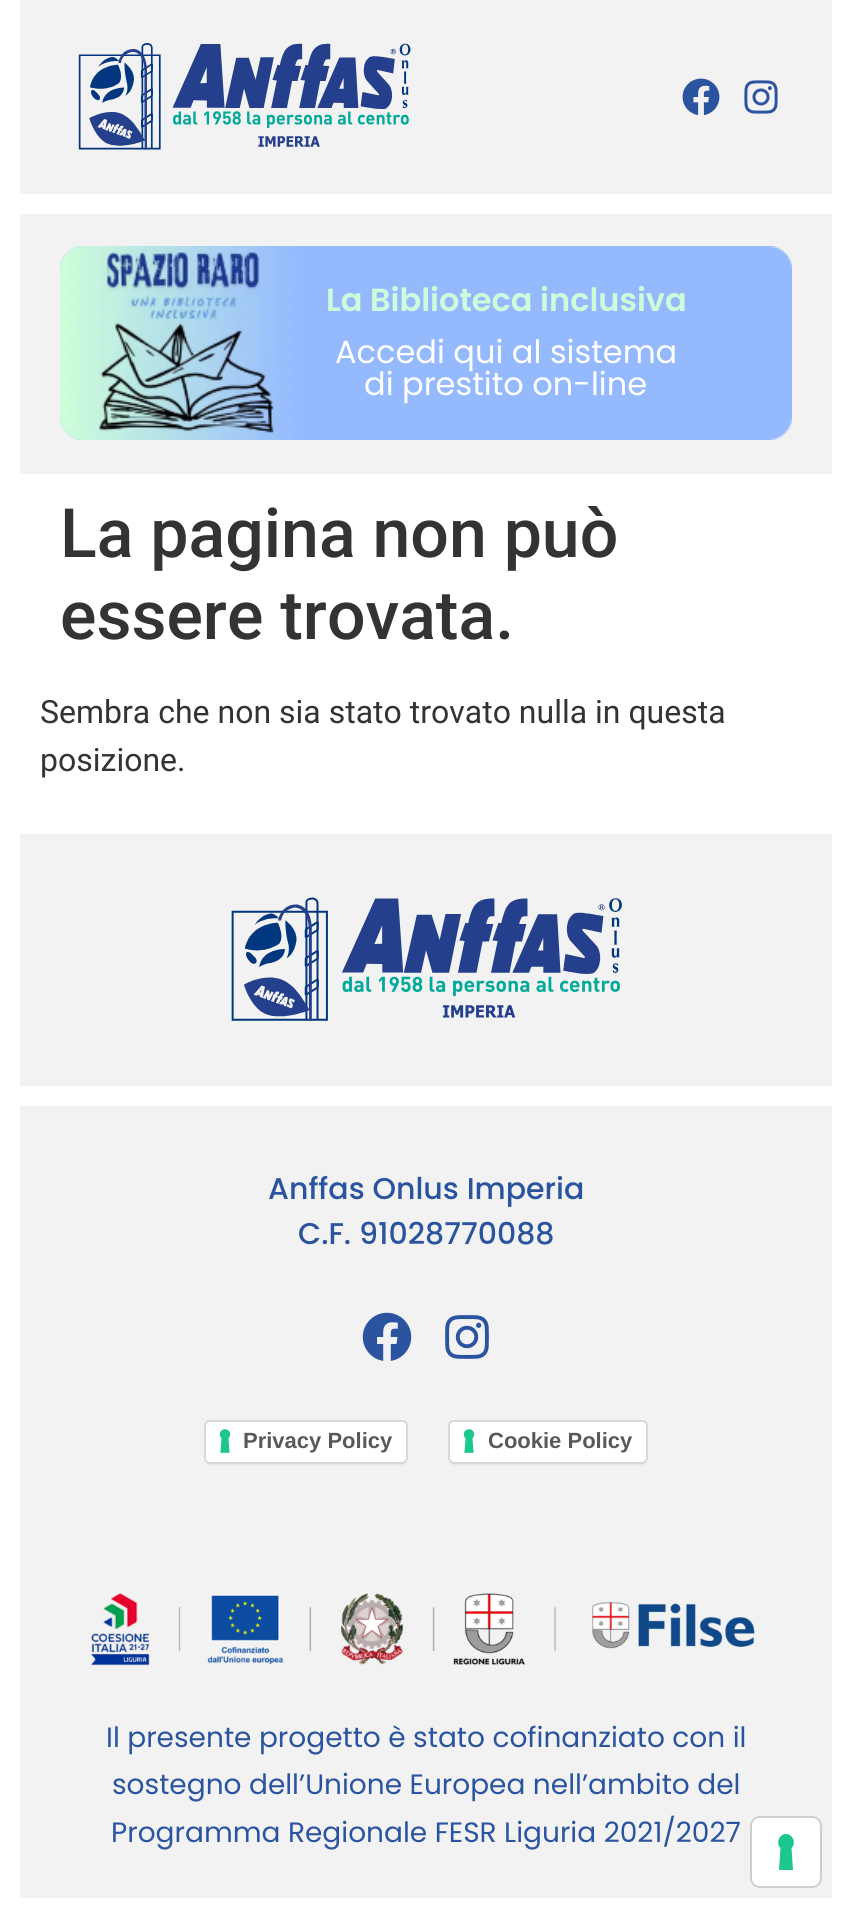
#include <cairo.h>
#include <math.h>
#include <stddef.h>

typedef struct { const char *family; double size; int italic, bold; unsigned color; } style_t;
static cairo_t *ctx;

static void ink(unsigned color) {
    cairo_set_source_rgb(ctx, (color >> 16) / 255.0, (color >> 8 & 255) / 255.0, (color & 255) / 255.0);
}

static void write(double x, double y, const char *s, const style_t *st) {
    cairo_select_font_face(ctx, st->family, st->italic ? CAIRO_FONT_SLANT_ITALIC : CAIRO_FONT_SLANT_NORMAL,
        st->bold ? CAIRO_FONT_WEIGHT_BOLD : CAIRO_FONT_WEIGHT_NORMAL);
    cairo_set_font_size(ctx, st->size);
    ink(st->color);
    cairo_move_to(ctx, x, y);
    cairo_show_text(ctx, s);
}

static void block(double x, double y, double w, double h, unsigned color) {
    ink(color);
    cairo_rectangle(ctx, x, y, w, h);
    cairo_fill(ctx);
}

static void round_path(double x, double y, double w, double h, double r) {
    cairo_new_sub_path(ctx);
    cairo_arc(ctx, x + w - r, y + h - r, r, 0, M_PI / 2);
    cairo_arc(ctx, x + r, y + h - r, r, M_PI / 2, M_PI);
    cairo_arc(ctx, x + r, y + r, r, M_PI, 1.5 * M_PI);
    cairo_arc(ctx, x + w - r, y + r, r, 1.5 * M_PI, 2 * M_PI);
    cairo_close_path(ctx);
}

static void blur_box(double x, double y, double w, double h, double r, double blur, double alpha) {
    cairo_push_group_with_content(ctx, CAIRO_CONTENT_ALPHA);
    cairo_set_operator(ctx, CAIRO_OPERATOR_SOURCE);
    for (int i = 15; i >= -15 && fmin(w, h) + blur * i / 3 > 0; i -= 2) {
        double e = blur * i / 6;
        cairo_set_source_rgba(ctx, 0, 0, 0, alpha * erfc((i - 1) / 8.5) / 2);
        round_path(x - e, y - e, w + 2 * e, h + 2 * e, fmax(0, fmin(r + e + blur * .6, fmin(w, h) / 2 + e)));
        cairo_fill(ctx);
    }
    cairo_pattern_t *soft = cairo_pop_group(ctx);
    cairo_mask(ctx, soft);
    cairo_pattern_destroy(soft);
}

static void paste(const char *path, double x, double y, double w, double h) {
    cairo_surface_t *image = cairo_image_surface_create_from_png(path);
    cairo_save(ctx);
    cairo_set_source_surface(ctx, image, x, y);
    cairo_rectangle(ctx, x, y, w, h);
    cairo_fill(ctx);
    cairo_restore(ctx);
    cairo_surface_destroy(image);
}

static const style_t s1 = {"Poppins SemiBold", 32, 0, 0, 0xcdfdd9};
static const style_t s2 = {"Poppins", 32, 0, 0, 0xffffff};
static const style_t s3 = {"Roboto Medium", 68, 0, 0, 0x333333};
static const style_t s4 = {"Roboto", 32, 0, 0, 0x333333};
static const style_t s5 = {"Poppins Medium", 30, 0, 0, 0x2a54a0};
static const style_t s6 = {"Liberation Sans", 22, 0, 1, 0x595959};
static const style_t s7 = {"Poppins", 28, 0, 0, 0x2a54a0};

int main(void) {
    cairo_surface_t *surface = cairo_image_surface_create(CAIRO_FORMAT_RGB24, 851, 1917);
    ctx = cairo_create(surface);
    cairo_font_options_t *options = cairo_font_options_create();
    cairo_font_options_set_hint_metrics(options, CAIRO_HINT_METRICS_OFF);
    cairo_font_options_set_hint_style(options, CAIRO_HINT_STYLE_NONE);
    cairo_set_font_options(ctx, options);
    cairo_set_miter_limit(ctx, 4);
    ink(0xffffff);
    cairo_paint(ctx);
    block(20, 0, 812, 194, 0xf3f2f2);
    paste("pic1.png", 78, 43, 333, 107);
    paste("pic2.png", 682, 78, 38, 38);
    paste("pic3.png", 744, 80, 34, 34);
    block(20, 214, 812, 260, 0xf3f2f2);
    paste("pic4.png", 60, 246, 732, 194);
    write(326, 311, "La Biblioteca inclusiva", &s1);
    write(335, 363, "Accedi qui al sistema", &s2);
    write(364, 395, "di prestito on-line", &s2);
    write(60, 557, "La pagina non può", &s3);
    write(60, 639, "essere trovata.", &s3);
    write(40, 723, "Sembra che non sia stato trovato nulla in questa", &s4);
    write(40, 771, "posizione.", &s4);
    block(20, 834, 812, 252, 0xf3f2f2);
    paste("pic5.png", 231, 897, 391, 124);
    block(20, 1106, 812, 792, 0xf3f2f2);
    write(268, 1199, "Anffas Onlus Imperia", &s5);
    write(298, 1244, "C.F. 91028770088", &s5);
    paste("pic6.png", 362, 1312, 50, 49);
    paste("pic7.png", 445, 1315, 44, 44);
    ink(0x000000);
    blur_box(206, 1424, 200, 40, 4, 1, 0.15);
    ink(0xffffff);
    round_path(204, 1420, 204, 44, 6);
    cairo_fill(ctx);
    paste("pic8.png", 219, 1429, 12, 24);
    round_path(205, 1421, 202, 42, 5);
    cairo_set_source_rgba(ctx, 0, 0, 0, 0.15);
    cairo_stroke(ctx);
    write(243, 1448, "Privacy Policy", &s6);
    ink(0x000000);
    blur_box(450, 1424, 196, 40, 4, 1, 0.15);
    ink(0xffffff);
    round_path(448, 1420, 200, 44, 6);
    cairo_fill(ctx);
    paste("pic8.png", 463, 1429, 12, 24);
    round_path(449, 1421, 198, 42, 5);
    cairo_set_source_rgba(ctx, 0, 0, 0, 0.15);
    cairo_stroke(ctx);
    write(488, 1448, "Cookie Policy", &s6);
    paste("pic9.png", 91, 1593, 664, 73);
    write(106, 1747, "Il presente progetto è stato cofinanziato con il", &s7);
    write(112, 1794, "sostegno dell’Unione Europea nell’ambito del", &s7);
    write(111, 1842, "Programma Regionale FESR Liguria 2021/2027", &s7);
    round_path(751, 1817, 70, 70, 9);
    ink(0xcfcece);
    cairo_stroke(ctx);
    ink(0xffffff);
    round_path(752, 1818, 68, 68, 8);
    cairo_fill(ctx);
    ink(0x1cc691);
    cairo_set_fill_rule(ctx, CAIRO_FILL_RULE_EVEN_ODD);
    cairo_new_path(ctx);
    cairo_move_to(ctx, 786, 1834);
    cairo_curve_to(ctx, 793, 1834, 796.5, 1843.5, 791.5, 1848);
    cairo_line_to(ctx, 793, 1870);
    cairo_line_to(ctx, 779, 1870);
    cairo_line_to(ctx, 780.5, 1848);
    cairo_curve_to(ctx, 775.5, 1843.5, 779, 1834, 786, 1834);
    cairo_close_path(ctx);
    cairo_fill(ctx);
    cairo_surface_write_to_png(surface, "screenshot.png");
    cairo_font_options_destroy(options);
    cairo_destroy(ctx);
    cairo_surface_destroy(surface);
    return 0;
}
